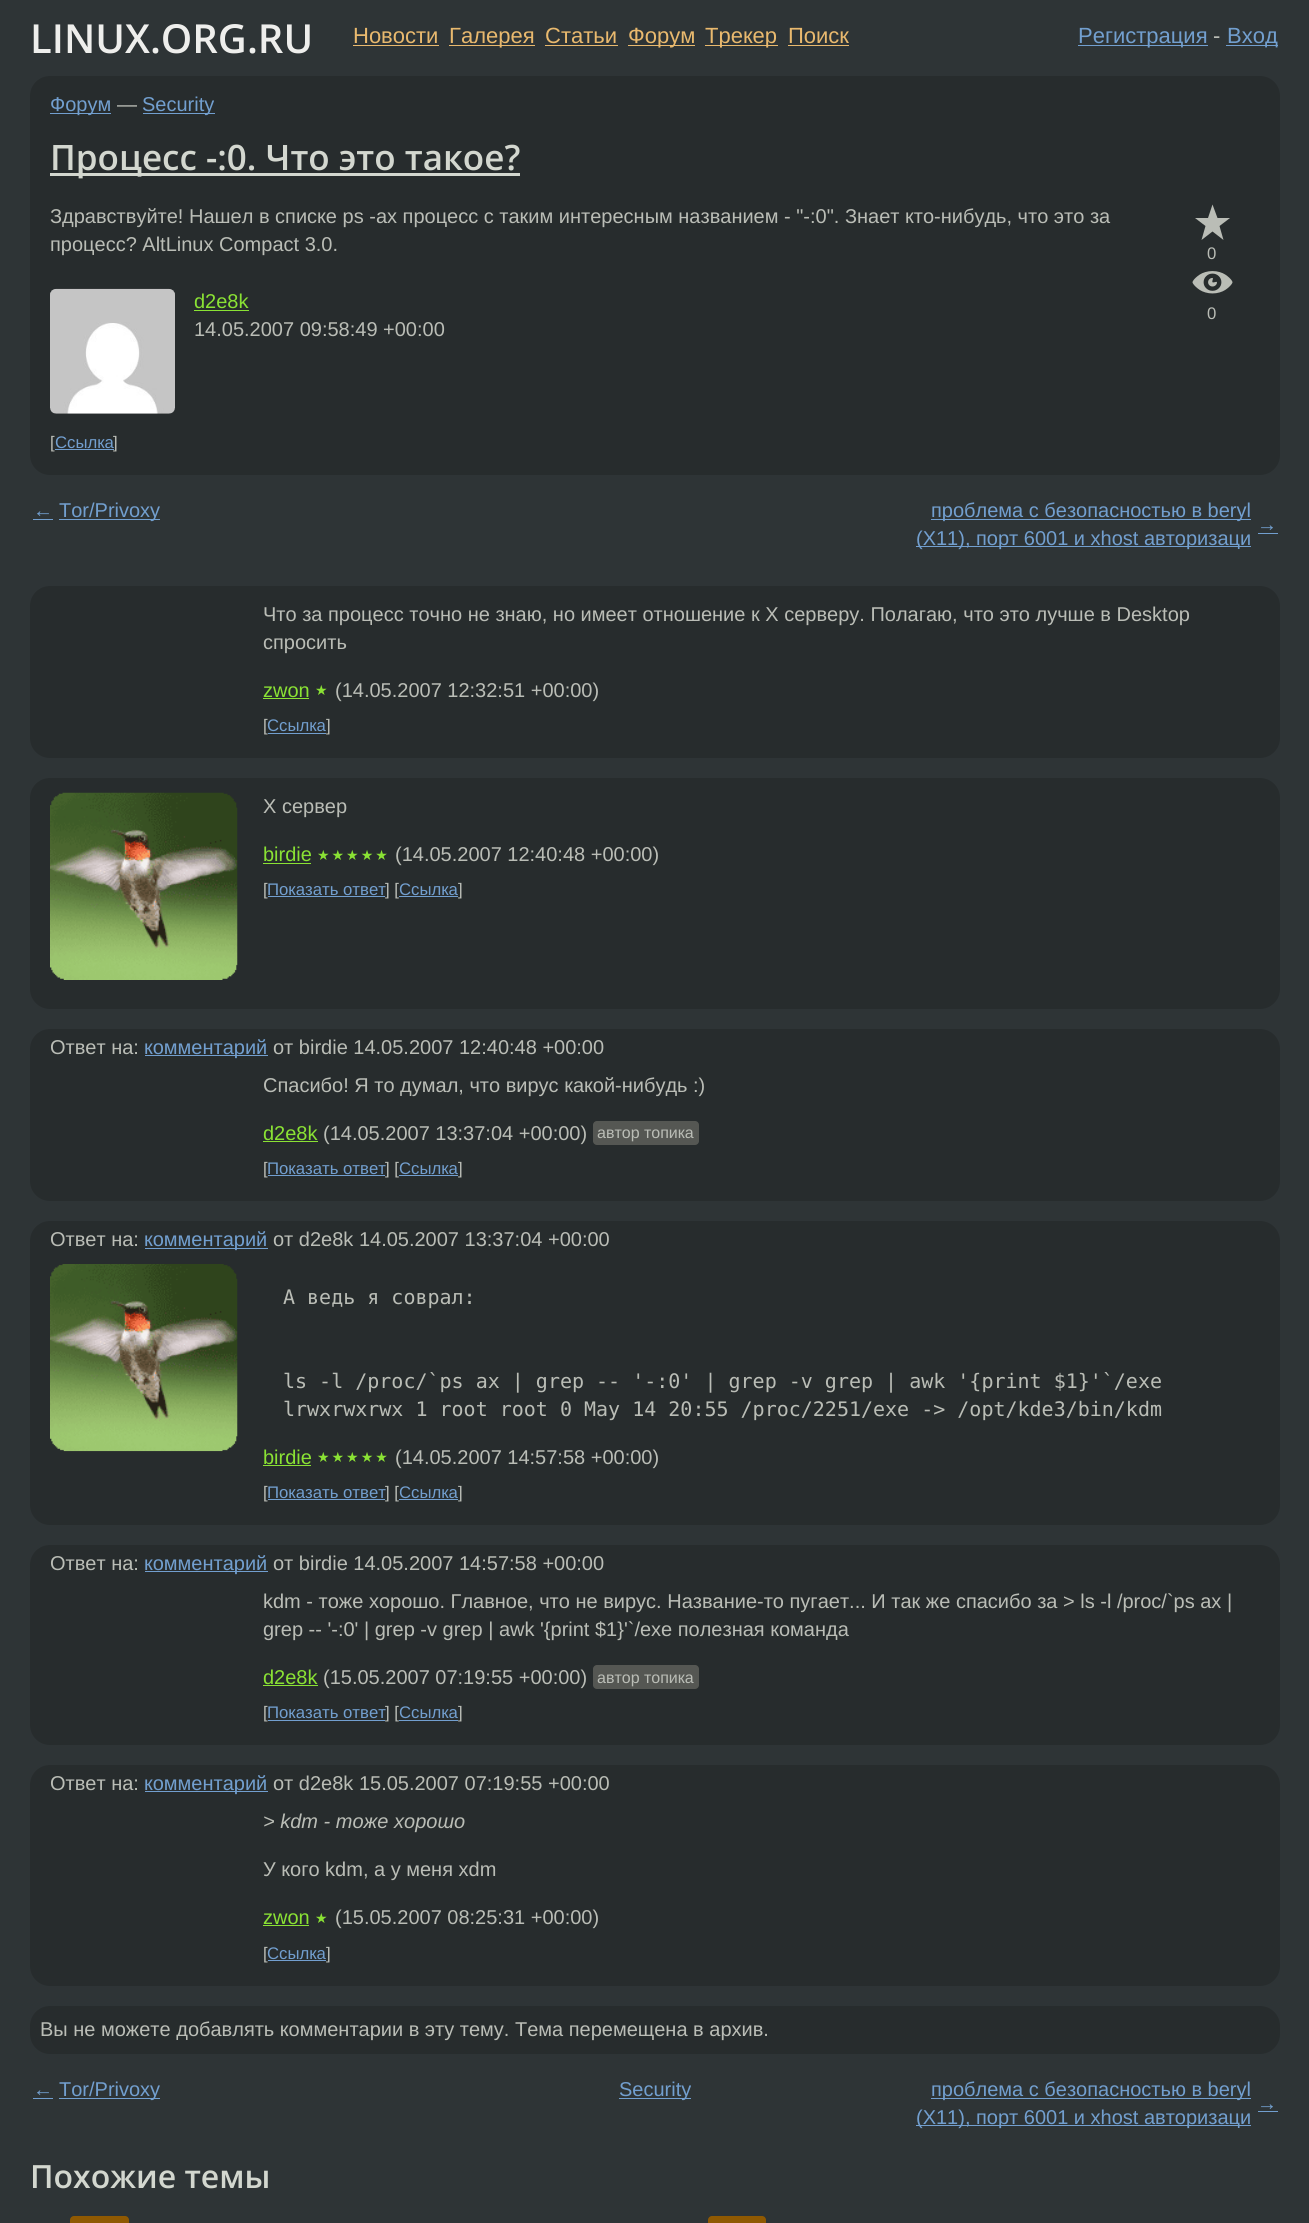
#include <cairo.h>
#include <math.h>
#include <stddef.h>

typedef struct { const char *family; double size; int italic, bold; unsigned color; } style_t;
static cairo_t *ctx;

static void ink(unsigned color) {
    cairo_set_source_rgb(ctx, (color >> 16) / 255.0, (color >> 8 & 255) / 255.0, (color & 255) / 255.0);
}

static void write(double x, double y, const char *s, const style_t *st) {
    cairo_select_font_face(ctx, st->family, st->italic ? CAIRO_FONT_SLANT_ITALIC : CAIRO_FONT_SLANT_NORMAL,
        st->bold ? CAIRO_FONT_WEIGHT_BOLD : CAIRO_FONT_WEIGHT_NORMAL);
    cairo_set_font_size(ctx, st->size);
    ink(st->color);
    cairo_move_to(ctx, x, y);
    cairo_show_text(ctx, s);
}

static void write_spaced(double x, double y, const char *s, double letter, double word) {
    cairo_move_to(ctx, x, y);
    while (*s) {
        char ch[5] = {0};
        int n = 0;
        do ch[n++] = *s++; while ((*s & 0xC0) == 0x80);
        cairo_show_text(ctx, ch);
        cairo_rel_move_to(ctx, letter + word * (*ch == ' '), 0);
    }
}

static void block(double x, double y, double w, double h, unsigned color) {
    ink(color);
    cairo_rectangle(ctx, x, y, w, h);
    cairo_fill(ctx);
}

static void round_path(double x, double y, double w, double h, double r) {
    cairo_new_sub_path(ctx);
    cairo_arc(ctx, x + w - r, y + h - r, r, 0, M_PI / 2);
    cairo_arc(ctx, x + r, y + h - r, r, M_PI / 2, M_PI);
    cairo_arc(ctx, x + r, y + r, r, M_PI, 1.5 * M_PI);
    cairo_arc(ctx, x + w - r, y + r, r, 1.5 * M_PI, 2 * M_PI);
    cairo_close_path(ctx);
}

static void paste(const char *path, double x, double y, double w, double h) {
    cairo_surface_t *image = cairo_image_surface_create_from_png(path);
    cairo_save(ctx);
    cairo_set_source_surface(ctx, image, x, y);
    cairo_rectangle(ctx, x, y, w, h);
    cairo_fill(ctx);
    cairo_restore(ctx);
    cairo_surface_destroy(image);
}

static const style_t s1 = {"Open Sans SemiBold", 40, 0, 0, 0xeeeeec};
static const style_t s2 = {"Liberation Sans", 22, 0, 0, 0xe9b96e};
static const style_t s3 = {"Liberation Sans", 22, 0, 0, 0x729fcf};
static const style_t s4 = {"Liberation Sans", 22, 0, 0, 0xbabdb6};
static const style_t s5 = {"Liberation Sans", 20, 0, 0, 0x729fcf};
static const style_t s6 = {"Liberation Sans", 20, 0, 0, 0xbabdb6};
static const style_t s7 = {"Open Sans SemiBold", 35, 0, 0, 0xd3d7cf};
static const style_t s8 = {"Liberation Sans", 20, 0, 0, 0x8ae234};
static const style_t s9 = {"Liberation Sans", 16.75, 0, 0, 0xbabdb6};
static const style_t s10 = {"Liberation Sans", 16.75, 0, 0, 0x729fcf};
static const style_t s11 = {"Liberation Sans", 16, 0, 0, 0xbabdb6};
static const style_t s12 = {"DejaVu Sans Mono", 20, 0, 0, 0xbabdb6};
static const style_t s13 = {"Liberation Sans", 20, 1, 0, 0xbabdb6};
static const style_t s14 = {"Open Sans SemiBold", 32, 0, 0, 0xd3d7cf};

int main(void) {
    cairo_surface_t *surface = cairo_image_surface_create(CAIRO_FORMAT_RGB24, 1309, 2223);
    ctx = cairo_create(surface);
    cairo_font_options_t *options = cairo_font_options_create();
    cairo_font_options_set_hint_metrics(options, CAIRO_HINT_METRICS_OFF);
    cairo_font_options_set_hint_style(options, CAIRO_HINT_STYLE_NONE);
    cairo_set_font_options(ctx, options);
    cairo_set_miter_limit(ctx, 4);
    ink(0x2e3436);
    cairo_paint(ctx);
    write(30, 53, "LINUX.ORG.RU", &s1);
    write(353, 43, "Новости", &s2);
    block(353, 45, 86, 1, 0xe9b96e);
    block(449, 45, 86, 1, 0xe9b96e);
    write(449, 43, "Галерея", &s2);
    write(545, 43, "Статьи", &s2);
    block(545, 45, 73, 1, 0xe9b96e);
    block(628, 45, 67, 1, 0xe9b96e);
    write(628, 43, "Форум", &s2);
    block(705, 45, 73, 1, 0xe9b96e);
    write(705, 43, "Трекер", &s2);
    write(788, 43, "Поиск", &s2);
    block(788, 45, 61, 1, 0xe9b96e);
    block(1078, 45, 130, 1, 0x729fcf);
    write(1078, 43, "Регистрация", &s3);
    write(1213, 43, "-", &s4);
    block(1226, 45, 52, 1, 0x729fcf);
    write(1227, 43, "Вход", &s3);
    ink(0x272c2d);
    round_path(30, 76, 1250, 399, 20);
    cairo_fill(ctx);
    block(50, 113, 61, 1, 0x729fcf);
    write(50, 111, "Форум", &s5);
    write(117, 111, "—", &s6);
    block(143, 113, 72, 1, 0x729fcf);
    write(142, 111, "Security", &s5);
    block(50, 173, 470, 3, 0xd3d7cf);
    write(50, 170, "Процесс -:0. Что это такое?", &s7);
    write(50, 223, "Здравствуйте! Нашел в списке ps -ax процесс с таким интересным названием - \"-:0\". Знает кто-нибудь, что это за", &s6);
    write(50, 251, "процесс? AltLinux Compact 3.0.", &s6);
    paste("pic1.png", 50, 288, 125, 126);
    write(194, 308, "d2e8k", &s8);
    block(194, 310, 55, 1, 0x8ae234);
    write(194, 336, "14.05.2007 09:58:49 +00:00", &s6);
    cairo_new_path(ctx);
    cairo_move_to(ctx, 1212.5, 204.5);
    cairo_line_to(ctx, 1217.5, 218);
    cairo_line_to(ctx, 1230, 218);
    cairo_line_to(ctx, 1219.5, 226);
    cairo_line_to(ctx, 1223.5, 240);
    cairo_line_to(ctx, 1212.5, 231.5);
    cairo_line_to(ctx, 1201.5, 240);
    cairo_line_to(ctx, 1205.5, 226);
    cairo_line_to(ctx, 1195, 218);
    cairo_line_to(ctx, 1208, 218);
    cairo_close_path(ctx);
    cairo_fill(ctx);
    write(1207, 259, "0", &s9);
    paste("pic2.png", 1192, 271, 41, 23);
    write(1207, 319, "0", &s9);
    write(50, 448, "[", &s9);
    block(55, 449, 59, 1, 0x729fcf);
    write(55, 448, "Ссылка", &s10);
    write(113, 448, "]", &s9);
    write(33, 517, "←", &s5);
    block(33, 519, 20, 1, 0x729fcf);
    block(59, 519, 101, 1, 0x729fcf);
    write(59, 517, "Tor/Privoxy", &s5);
    block(931, 519, 320, 1, 0x729fcf);
    write(931, 517, "проблема с безопасностью в beryl", &s5);
    block(916, 546, 335, 1, 0x729fcf);
    write(916, 545, "(X11), порт 6001 и xhost авторизаци", &s5);
    write(1257, 531, "→", &s5);
    block(1258, 533, 20, 1, 0x729fcf);
    ink(0x272c2d);
    round_path(30, 586, 1250, 172, 20);
    cairo_fill(ctx);
    write(263, 621, "Что за процесс точно не знаю, но имеет отношение к X серверу. Полагаю, что это лучше в Desktop", &s6);
    write(263, 649, "спросить", &s6);
    write(263, 697, "zwon", &s8);
    block(263, 698, 46, 1, 0x8ae234);
    cairo_select_font_face(ctx, "DejaVu Sans", CAIRO_FONT_SLANT_NORMAL, CAIRO_FONT_WEIGHT_NORMAL);
    cairo_set_font_size(ctx, 14);
    write_spaced(315, 695, "★", 2, 0);
    write(335, 697, "(14.05.2007 12:32:51 +00:00)", &s6);
    write(263, 731, "[", &s9);
    write(267, 731, "Ссылка", &s10);
    block(268, 733, 58, 1, 0x729fcf);
    write(326, 731, "]", &s9);
    ink(0x272c2d);
    round_path(30, 778, 1250, 231, 20);
    cairo_fill(ctx);
    paste("pic3.png", 50, 792, 188, 188);
    write(263, 813, "X сервер", &s6);
    write(263, 861, "birdie", &s8);
    block(263, 863, 48, 1, 0x8ae234);
    cairo_select_font_face(ctx, "DejaVu Sans", CAIRO_FONT_SLANT_NORMAL, CAIRO_FONT_WEIGHT_NORMAL);
    cairo_set_font_size(ctx, 14);
    write_spaced(317, 860, "★★★★★", 2, 0);
    write(395, 861, "(14.05.2007 12:40:48 +00:00)", &s6);
    write(263, 895, "[", &s9);
    write(267, 895, "Показать ответ", &s10);
    write(385, 895, "] [", &s9);
    block(268, 896, 117, 1, 0x729fcf);
    block(399, 896, 59, 1, 0x729fcf);
    write(399, 895, "Ссылка", &s10);
    write(458, 895, "]", &s9);
    ink(0x272c2d);
    round_path(30, 1029, 1250, 172, 20);
    cairo_fill(ctx);
    write(50, 1054, "Ответ на:", &s6);
    block(145, 1055, 123, 1, 0x729fcf);
    write(144, 1054, "комментарий", &s5);
    write(273, 1054, "от birdie 14.05.2007 12:40:48 +00:00", &s6);
    write(263, 1092, "Спасибо! Я то думал, что вирус какой-нибудь :)", &s6);
    write(263, 1140, "d2e8k", &s8);
    block(263, 1141, 55, 1, 0x8ae234);
    write(323, 1140, "(14.05.2007 13:37:04 +00:00)", &s6);
    ink(0x555753);
    round_path(593, 1121, 106, 24, 4);
    cairo_fill(ctx);
    write(597, 1138, "автор топика", &s11);
    write(263, 1174, "[", &s9);
    write(267, 1174, "Показать ответ", &s10);
    write(385, 1174, "] [", &s9);
    block(268, 1175, 117, 1, 0x729fcf);
    block(399, 1175, 59, 1, 0x729fcf);
    write(399, 1174, "Ссылка", &s10);
    write(458, 1174, "]", &s9);
    ink(0x272c2d);
    round_path(30, 1221, 1250, 304, 20);
    cairo_fill(ctx);
    write(50, 1246, "Ответ на:", &s6);
    block(145, 1248, 123, 1, 0x729fcf);
    write(144, 1246, "комментарий", &s5);
    write(273, 1246, "от d2e8k 14.05.2007 13:37:04 +00:00", &s6);
    paste("pic4.png", 50, 1264, 188, 188);
    write(283, 1304, "А ведь я соврал:", &s12);
    write(283, 1388, "ls -l /proc/`ps ax | grep -- '-:0' | grep -v grep | awk '{print $1}'`/exe", &s12);
    write(283, 1416, "lrwxrwxrwx 1 root root 0 May 14 20:55 /proc/2251/exe -> /opt/kde3/bin/kdm", &s12);
    write(263, 1464, "birdie", &s8);
    block(263, 1465, 48, 1, 0x8ae234);
    cairo_select_font_face(ctx, "DejaVu Sans", CAIRO_FONT_SLANT_NORMAL, CAIRO_FONT_WEIGHT_NORMAL);
    cairo_set_font_size(ctx, 14);
    write_spaced(317, 1462, "★★★★★", 2, 0);
    write(395, 1464, "(14.05.2007 14:57:58 +00:00)", &s6);
    write(263, 1498, "[", &s9);
    write(267, 1498, "Показать ответ", &s10);
    write(385, 1498, "] [", &s9);
    block(268, 1499, 117, 1, 0x729fcf);
    block(399, 1499, 59, 1, 0x729fcf);
    write(399, 1498, "Ссылка", &s10);
    write(458, 1498, "]", &s9);
    ink(0x272c2d);
    round_path(30, 1545, 1250, 200, 20);
    cairo_fill(ctx);
    write(50, 1570, "Ответ на:", &s6);
    block(145, 1571, 123, 1, 0x729fcf);
    write(144, 1570, "комментарий", &s5);
    write(273, 1570, "от birdie 14.05.2007 14:57:58 +00:00", &s6);
    write(263, 1608, "kdm - тоже хорошо. Главное, что не вирус. Название-то пугает... И так же спасибо за > ls -l /proc/`ps ax |", &s6);
    write(263, 1636, "grep -- '-:0' | grep -v grep | awk '{print $1}'`/exe полезная команда", &s6);
    write(263, 1684, "d2e8k", &s8);
    block(263, 1685, 55, 1, 0x8ae234);
    write(323, 1684, "(15.05.2007 07:19:55 +00:00)", &s6);
    ink(0x555753);
    round_path(593, 1665, 106, 24, 4);
    cairo_fill(ctx);
    write(597, 1683, "автор топика", &s11);
    write(263, 1718, "[", &s9);
    write(267, 1718, "Показать ответ", &s10);
    write(385, 1718, "] [", &s9);
    block(268, 1720, 117, 1, 0x729fcf);
    block(399, 1720, 59, 1, 0x729fcf);
    write(399, 1718, "Ссылка", &s10);
    write(458, 1718, "]", &s9);
    ink(0x272c2d);
    round_path(30, 1765, 1250, 221, 20);
    cairo_fill(ctx);
    write(50, 1790, "Ответ на:", &s6);
    block(145, 1791, 123, 1, 0x729fcf);
    write(144, 1790, "комментарий", &s5);
    write(273, 1790, "от d2e8k 15.05.2007 07:19:55 +00:00", &s6);
    write(263, 1828, "> kdm - тоже хорошо", &s13);
    write(263, 1876, "У кого kdm, а у меня xdm", &s6);
    write(263, 1924, "zwon", &s8);
    block(263, 1925, 46, 1, 0x8ae234);
    cairo_select_font_face(ctx, "DejaVu Sans", CAIRO_FONT_SLANT_NORMAL, CAIRO_FONT_WEIGHT_NORMAL);
    cairo_set_font_size(ctx, 14);
    write_spaced(315, 1923, "★", 2, 0);
    write(335, 1924, "(15.05.2007 08:25:31 +00:00)", &s6);
    write(263, 1959, "[", &s9);
    write(267, 1959, "Ссылка", &s10);
    block(268, 1960, 58, 1, 0x729fcf);
    write(326, 1959, "]", &s9);
    ink(0x272c2d);
    round_path(30, 2006, 1250, 48, 20);
    cairo_fill(ctx);
    write(40, 2036, "Вы не можете добавлять комментарии в эту тему. Тема перемещена в архив.", &s6);
    write(33, 2096, "←", &s5);
    block(33, 2098, 20, 1, 0x729fcf);
    block(59, 2098, 101, 1, 0x729fcf);
    write(59, 2096, "Tor/Privoxy", &s5);
    block(619, 2098, 72, 1, 0x729fcf);
    write(619, 2096, "Security", &s5);
    block(931, 2098, 320, 1, 0x729fcf);
    write(931, 2096, "проблема с безопасностью в beryl", &s5);
    block(916, 2125, 335, 1, 0x729fcf);
    write(916, 2124, "(X11), порт 6001 и xhost авторизаци", &s5);
    write(1257, 2110, "→", &s5);
    block(1258, 2111, 20, 1, 0x729fcf);
    write(30, 2188, "Похожие темы", &s14);
    ink(0x8f5902);
    round_path(70, 2216, 59, 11, 4);
    cairo_fill(ctx);
    round_path(708, 2216, 58, 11, 4);
    cairo_fill(ctx);
    cairo_surface_write_to_png(surface, "screenshot.png");
    cairo_font_options_destroy(options);
    cairo_destroy(ctx);
    cairo_surface_destroy(surface);
    return 0;
}
